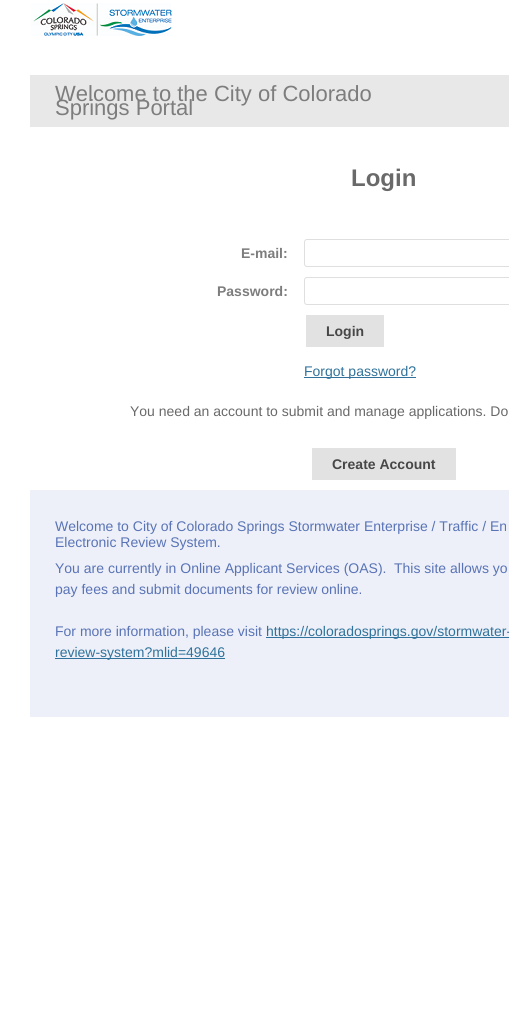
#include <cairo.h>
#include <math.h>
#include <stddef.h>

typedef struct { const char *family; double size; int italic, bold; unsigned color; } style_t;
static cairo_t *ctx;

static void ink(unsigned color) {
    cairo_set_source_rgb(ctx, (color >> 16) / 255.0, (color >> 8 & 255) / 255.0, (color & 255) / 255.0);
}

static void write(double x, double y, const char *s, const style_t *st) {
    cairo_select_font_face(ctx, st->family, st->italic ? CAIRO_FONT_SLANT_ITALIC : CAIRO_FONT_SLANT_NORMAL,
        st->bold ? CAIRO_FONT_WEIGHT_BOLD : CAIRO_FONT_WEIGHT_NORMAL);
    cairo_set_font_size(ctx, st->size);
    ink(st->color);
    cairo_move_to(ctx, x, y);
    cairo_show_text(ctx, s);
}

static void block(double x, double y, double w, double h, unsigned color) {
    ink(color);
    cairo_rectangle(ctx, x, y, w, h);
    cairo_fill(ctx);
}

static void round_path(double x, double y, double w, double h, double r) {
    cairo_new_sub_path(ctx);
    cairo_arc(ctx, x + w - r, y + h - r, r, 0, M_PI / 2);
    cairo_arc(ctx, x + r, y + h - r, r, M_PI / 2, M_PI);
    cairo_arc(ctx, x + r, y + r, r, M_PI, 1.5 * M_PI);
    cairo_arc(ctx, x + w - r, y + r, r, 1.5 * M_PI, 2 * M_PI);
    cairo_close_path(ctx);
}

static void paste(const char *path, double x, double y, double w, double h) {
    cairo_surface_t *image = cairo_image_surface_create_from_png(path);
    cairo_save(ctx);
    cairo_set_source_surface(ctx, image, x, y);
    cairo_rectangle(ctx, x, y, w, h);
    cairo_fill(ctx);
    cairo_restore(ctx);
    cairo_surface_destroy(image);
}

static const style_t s1 = {"Liberation Sans", 22, 0, 0, 0x7d7d7d};
static const style_t s2 = {"Liberation Sans", 24, 0, 1, 0x696969};
static const style_t s3 = {"Liberation Sans", 14, 0, 1, 0x7d7d7d};
static const style_t s4 = {"Liberation Sans", 14, 0, 1, 0x474747};
static const style_t s5 = {"Liberation Sans", 14, 0, 0, 0x30729b};
static const style_t s6 = {"Liberation Sans", 14, 0, 0, 0x696969};
static const style_t s7 = {"Liberation Sans", 14, 0, 0, 0x5973b6};

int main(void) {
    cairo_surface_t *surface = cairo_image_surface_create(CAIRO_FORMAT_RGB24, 509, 1010);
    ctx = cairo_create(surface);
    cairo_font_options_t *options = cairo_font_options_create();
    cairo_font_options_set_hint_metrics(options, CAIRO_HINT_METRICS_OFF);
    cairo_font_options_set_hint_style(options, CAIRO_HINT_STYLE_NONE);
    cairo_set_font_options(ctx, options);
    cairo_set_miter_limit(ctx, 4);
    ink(0xffffff);
    cairo_paint(ctx);
    paste("pic1.png", 31, 3, 141, 33);
    block(30, 75, 479, 52, 0xe8e8e8);
    write(55, 101, "Welcome to the City of Colorado", &s1);
    write(55, 115, "Springs Portal", &s1);
    write(351, 186, "Login", &s2);
    write(241, 258, "E-mail:", &s3);
    round_path(304.5, 239.5, 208, 27, 2.5);
    ink(0xdfdfdf);
    cairo_set_line_width(ctx, 1);
    cairo_stroke(ctx);
    write(217, 296, "Password:", &s3);
    round_path(304.5, 277.5, 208, 27, 2.5);
    ink(0xdfdfdf);
    cairo_stroke(ctx);
    block(306, 315, 78, 32, 0xe2e2e2);
    write(326, 336, "Login", &s4);
    block(304, 377, 112, 1, 0x30729b);
    write(304, 376, "Forgot password?", &s5);
    write(130, 416, "You need an account to submit and manage applications. Do", &s6);
    block(312, 448, 144, 32, 0xe2e2e2);
    write(332, 469, "Create Account", &s4);
    block(30, 490, 479, 227, 0xedf0f8);
    write(55, 531, "Welcome to City of Colorado Springs Stormwater Enterprise / Traffic / En", &s7);
    write(55, 547, "Electronic Review System.", &s7);
    write(55, 573, "You are currently in Online Applicant Services (OAS).", &s7);
    write(394, 573, "This site allows yo", &s7);
    write(55, 594, "pay fees and submit documents for review online.", &s7);
    write(55, 636, "For more information, please visit", &s7);
    block(266, 637, 243, 1, 0x30729b);
    write(266, 636, "https://coloradosprings.gov/stormwater-", &s5);
    block(55, 658, 170, 1, 0x30729b);
    write(55, 657, "review-system?mlid=49646", &s5);
    cairo_surface_write_to_png(surface, "screenshot.png");
    cairo_font_options_destroy(options);
    cairo_destroy(ctx);
    cairo_surface_destroy(surface);
    return 0;
}
